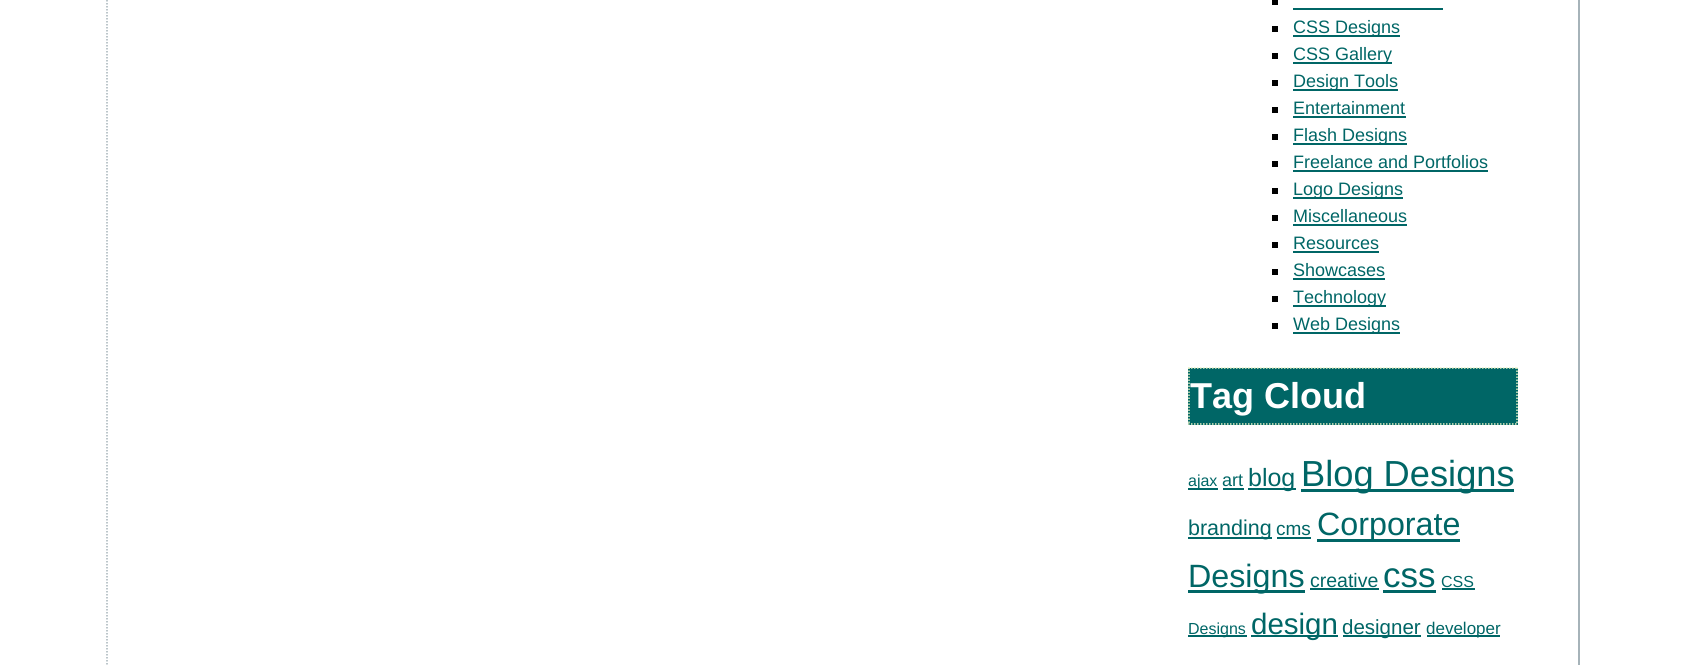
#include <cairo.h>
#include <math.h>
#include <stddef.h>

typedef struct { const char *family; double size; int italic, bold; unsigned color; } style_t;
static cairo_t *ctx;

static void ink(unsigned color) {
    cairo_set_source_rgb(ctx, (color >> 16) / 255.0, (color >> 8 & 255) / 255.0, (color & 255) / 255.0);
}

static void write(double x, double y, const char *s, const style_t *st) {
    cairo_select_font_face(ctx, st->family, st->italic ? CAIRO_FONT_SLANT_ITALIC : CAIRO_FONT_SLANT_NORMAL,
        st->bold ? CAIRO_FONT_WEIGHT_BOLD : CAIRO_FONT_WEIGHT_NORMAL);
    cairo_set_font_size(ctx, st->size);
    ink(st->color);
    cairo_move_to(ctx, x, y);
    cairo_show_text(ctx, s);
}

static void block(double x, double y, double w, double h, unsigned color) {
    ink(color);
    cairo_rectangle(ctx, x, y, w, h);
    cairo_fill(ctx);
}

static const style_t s1 = {"Liberation Sans", 18, 0, 0, 0x006666};
static const style_t s2 = {"Liberation Sans", 36, 0, 1, 0xffffff};
static const style_t s3 = {"Liberation Sans", 16, 0, 0, 0x006666};
static const style_t s4 = {"Liberation Sans", 25, 0, 0, 0x006666};
static const style_t s5 = {"Liberation Sans", 36.25, 0, 0, 0x006666};
static const style_t s6 = {"Liberation Sans", 21.5, 0, 0, 0x006666};
static const style_t s7 = {"Liberation Sans", 19, 0, 0, 0x006666};
static const style_t s8 = {"Liberation Sans", 32.25, 0, 0, 0x006666};
static const style_t s9 = {"Liberation Sans", 19.5, 0, 0, 0x006666};
static const style_t s10 = {"Liberation Sans", 35, 0, 0, 0x006666};
static const style_t s11 = {"Liberation Sans", 29.5, 0, 0, 0x006666};
static const style_t s12 = {"Liberation Sans", 20.5, 0, 0, 0x006666};
static const style_t s13 = {"Liberation Sans", 17, 0, 0, 0x006666};

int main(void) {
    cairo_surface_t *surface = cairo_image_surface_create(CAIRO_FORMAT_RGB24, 1685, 665);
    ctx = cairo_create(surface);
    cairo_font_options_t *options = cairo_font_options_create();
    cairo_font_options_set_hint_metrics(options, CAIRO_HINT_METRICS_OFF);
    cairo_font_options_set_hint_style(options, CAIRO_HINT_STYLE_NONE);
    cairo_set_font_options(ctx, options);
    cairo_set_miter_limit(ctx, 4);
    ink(0xffffff);
    cairo_paint(ctx);
    block(1578, 0, 2, 665, 0xa6b3b9);
    cairo_new_path(ctx);
    cairo_move_to(ctx, 107, -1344);
    cairo_line_to(ctx, 107, 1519.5);
    cairo_set_line_width(ctx, 1.5);
    cairo_set_dash(ctx, (double[]){1.5, 1.5}, 2, 0);
    cairo_stroke(ctx);
    block(1272, 0, 6, 5, 0x000000);
    block(1293, 8, 150, 2, 0x006666);
    block(1272, 26, 6, 6, 0x000000);
    block(1293, 35, 107, 2, 0x006666);
    write(1293, 33, "CSS Designs", &s1);
    block(1272, 53, 6, 6, 0x000000);
    block(1293, 62, 99, 2, 0x006666);
    write(1293, 60, "CSS Gallery", &s1);
    block(1272, 80, 6, 6, 0x000000);
    block(1293, 89, 105, 2, 0x006666);
    write(1293, 87, "Design Tools", &s1);
    block(1272, 107, 6, 6, 0x000000);
    write(1293, 114, "Entertainment", &s1);
    block(1293, 116, 113, 2, 0x006666);
    block(1272, 134, 6, 6, 0x000000);
    block(1293, 143, 114, 2, 0x006666);
    write(1293, 141, "Flash Designs", &s1);
    block(1272, 161, 6, 6, 0x000000);
    write(1293, 168, "Freelance and Portfolios", &s1);
    block(1293, 170, 195, 2, 0x006666);
    block(1272, 188, 6, 6, 0x000000);
    block(1293, 197, 110, 2, 0x006666);
    write(1293, 195, "Logo Designs", &s1);
    block(1272, 215, 6, 6, 0x000000);
    write(1293, 222, "Miscellaneous", &s1);
    block(1293, 224, 114, 2, 0x006666);
    block(1272, 242, 6, 6, 0x000000);
    write(1293, 249, "Resources", &s1);
    block(1293, 251, 86, 2, 0x006666);
    block(1272, 269, 6, 6, 0x000000);
    write(1293, 276, "Showcases", &s1);
    block(1293, 278, 92, 2, 0x006666);
    block(1272, 296, 6, 6, 0x000000);
    block(1293, 305, 93, 2, 0x006666);
    write(1293, 303, "Technology", &s1);
    block(1272, 323, 6, 6, 0x000000);
    block(1293, 332, 107, 2, 0x006666);
    write(1293, 330, "Web Designs", &s1);
    block(1188, 368, 330, 57, 0x006666);
    cairo_new_path(ctx);
    cairo_move_to(ctx, 1188, 368);
    cairo_line_to(ctx, 1518, 368);
    ink(0xe7f1c3);
    cairo_stroke(ctx);
    cairo_new_path(ctx);
    cairo_move_to(ctx, 1517, 367.5);
    cairo_line_to(ctx, 1517, 424.5);
    cairo_stroke(ctx);
    cairo_new_path(ctx);
    cairo_move_to(ctx, 1188, 424);
    cairo_line_to(ctx, 1518, 424);
    cairo_stroke(ctx);
    cairo_new_path(ctx);
    cairo_move_to(ctx, 1189, 367.5);
    cairo_line_to(ctx, 1189, 424.5);
    cairo_stroke(ctx);
    write(1190, 408, "Tag Cloud", &s2);
    block(1188, 488, 30, 2, 0x006666);
    write(1188, 486, "ajax", &s3);
    write(1222, 486, "art", &s1);
    block(1223, 488, 21, 2, 0x006666);
    block(1248, 488, 48, 2, 0x006666);
    write(1248, 486, "blog", &s4);
    block(1301, 489, 213, 3, 0x006666);
    write(1301, 486, "Blog Designs", &s5);
    block(1188, 537, 84, 2, 0x006666);
    write(1188, 535, "branding", &s6);
    write(1276, 535, "cms", &s7);
    block(1277, 537, 34, 2, 0x006666);
    block(1317, 539, 143, 3, 0x006666);
    write(1317, 535, "Corporate", &s8);
    block(1188, 590, 117, 3, 0x006666);
    write(1188, 587, "Designs", &s8);
    write(1310, 587, "creative", &s9);
    block(1310, 588, 69, 2, 0x006666);
    write(1383, 587, "css", &s10);
    block(1383, 590, 53, 3, 0x006666);
    write(1441, 587, "CSS", &s3);
    block(1442, 588, 33, 2, 0x006666);
    block(1188, 635, 59, 2, 0x006666);
    write(1188, 634, "Designs", &s3);
    block(1251, 635, 87, 2, 0x006666);
    write(1251, 634, "design", &s11);
    block(1343, 635, 78, 2, 0x006666);
    write(1342, 634, "designer", &s12);
    block(1427, 635, 73, 2, 0x006666);
    write(1426, 634, "developer", &s13);
    cairo_surface_write_to_png(surface, "screenshot.png");
    cairo_font_options_destroy(options);
    cairo_destroy(ctx);
    cairo_surface_destroy(surface);
    return 0;
}
